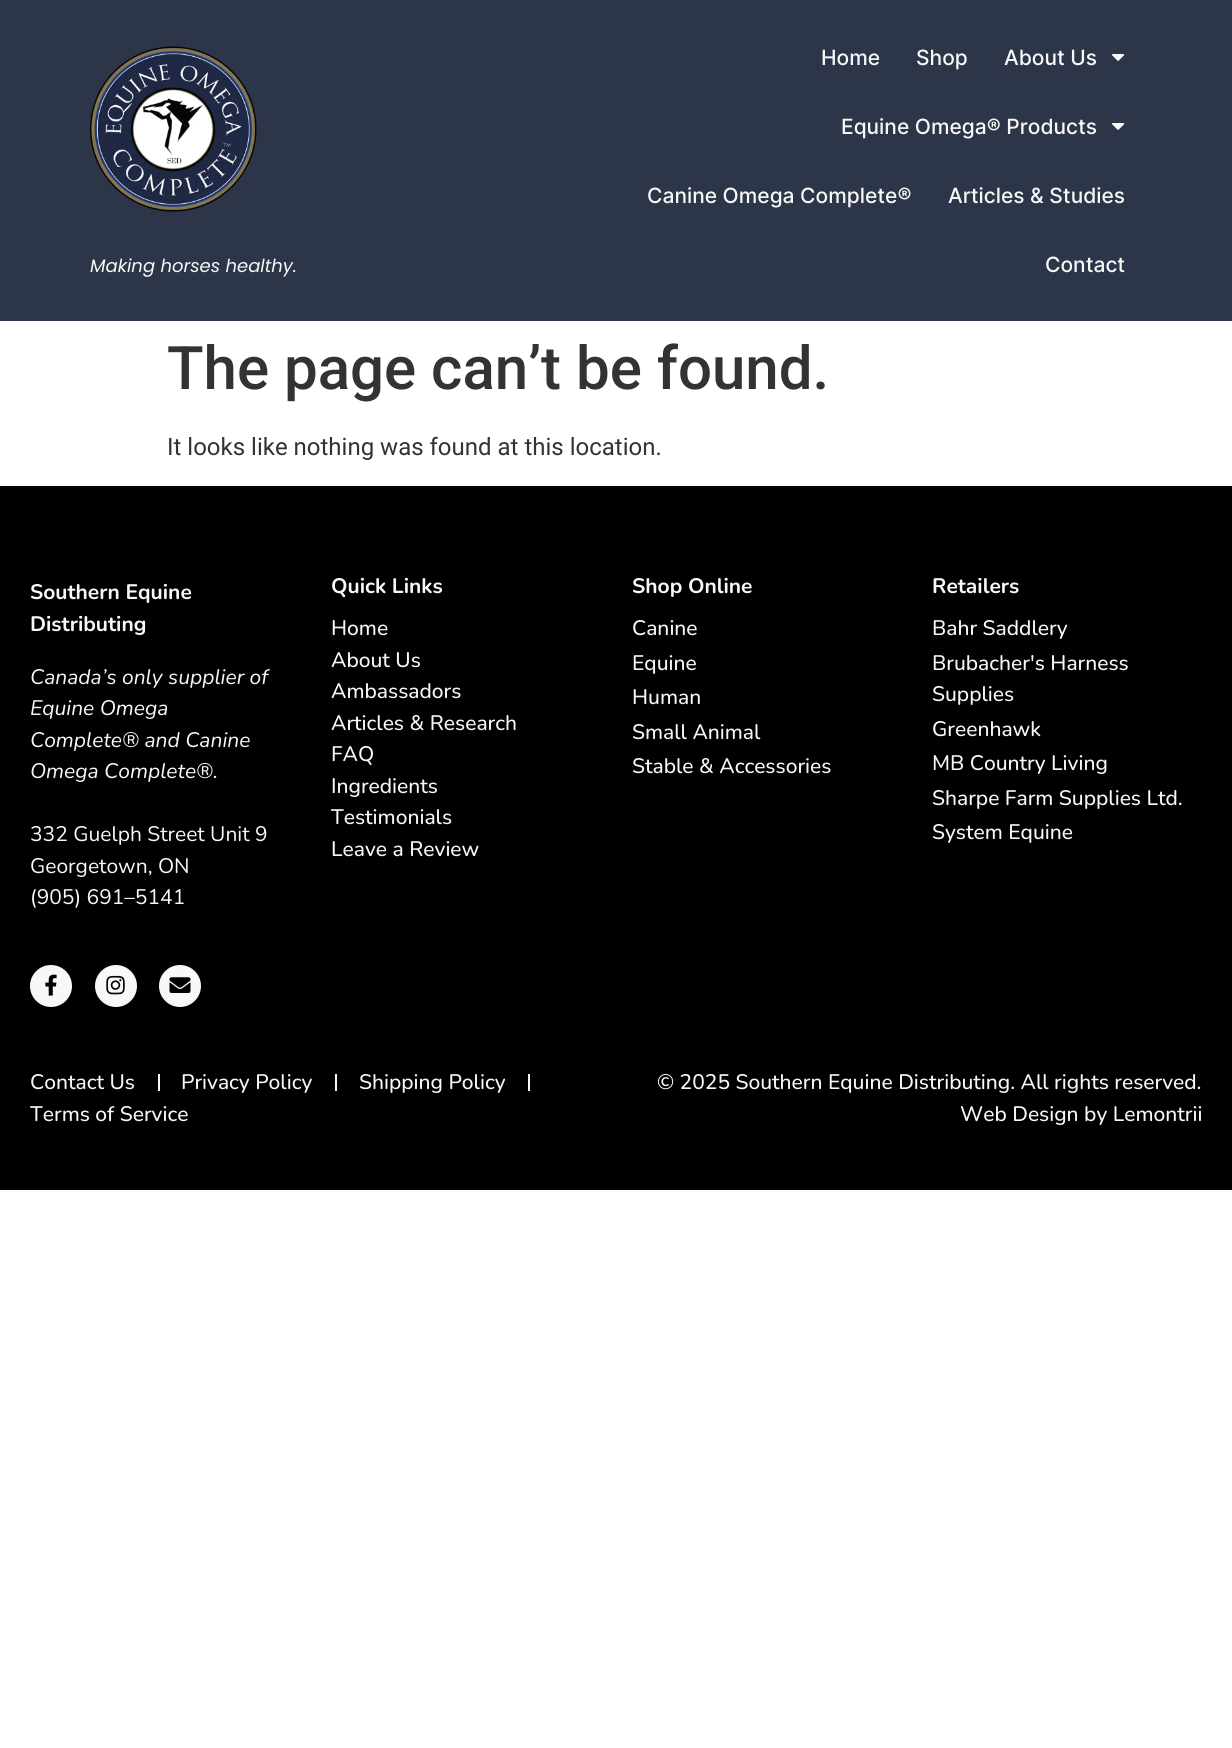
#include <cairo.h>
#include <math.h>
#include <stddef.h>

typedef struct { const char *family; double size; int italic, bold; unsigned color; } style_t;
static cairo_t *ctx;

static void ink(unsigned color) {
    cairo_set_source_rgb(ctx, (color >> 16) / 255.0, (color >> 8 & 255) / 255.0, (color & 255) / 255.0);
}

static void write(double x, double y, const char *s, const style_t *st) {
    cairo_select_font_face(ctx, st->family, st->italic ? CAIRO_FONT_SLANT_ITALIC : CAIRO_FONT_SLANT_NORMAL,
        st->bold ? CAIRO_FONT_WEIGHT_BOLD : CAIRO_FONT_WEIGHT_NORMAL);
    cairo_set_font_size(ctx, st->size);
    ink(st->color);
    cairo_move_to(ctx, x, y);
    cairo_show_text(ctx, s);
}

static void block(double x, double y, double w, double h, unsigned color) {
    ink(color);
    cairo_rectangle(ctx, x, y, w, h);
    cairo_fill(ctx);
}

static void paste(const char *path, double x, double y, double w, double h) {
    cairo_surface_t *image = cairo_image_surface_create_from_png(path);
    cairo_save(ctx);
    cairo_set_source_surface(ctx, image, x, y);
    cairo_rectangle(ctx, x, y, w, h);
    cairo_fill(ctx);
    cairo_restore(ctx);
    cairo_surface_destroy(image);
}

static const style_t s1 = {"Poppins", 18, 1, 0, 0xf8f8f8};
static const style_t s2 = {"Inter Medium", 21, 0, 0, 0xf8f8f8};
static const style_t s3 = {"Roboto Medium", 60, 0, 0, 0x333333};
static const style_t s4 = {"Roboto", 24, 0, 0, 0x333333};
static const style_t s5 = {"Nunito", 21, 0, 1, 0xf8f8f8};
static const style_t s6 = {"Nunito", 21, 1, 0, 0xf8f8f8};
static const style_t s7 = {"Nunito", 21, 0, 0, 0xf8f8f8};
static const style_t s8 = {"Nunito Medium", 21, 0, 0, 0xf8f8f8};

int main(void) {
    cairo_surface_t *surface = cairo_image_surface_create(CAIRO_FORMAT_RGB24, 1232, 1748);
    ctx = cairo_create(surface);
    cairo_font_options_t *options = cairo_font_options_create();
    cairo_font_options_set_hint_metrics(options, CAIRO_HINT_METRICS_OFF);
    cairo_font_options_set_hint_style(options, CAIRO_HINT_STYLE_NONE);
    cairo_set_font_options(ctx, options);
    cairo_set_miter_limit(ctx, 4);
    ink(0xffffff);
    cairo_paint(ctx);
    block(0, 0, 1232, 321, 0x2d3648);
    paste("pic1.png", 90, 46, 167, 166);
    write(90, 272, "Making horses healthy.", &s1);
    write(821, 65, "Home", &s2);
    write(916, 65, "Shop", &s2);
    write(1004, 65, "About Us", &s2);
    paste("pic2.png", 1112, 54, 13, 7);
    write(841, 134, "Equine Omega® Products", &s2);
    paste("pic2.png", 1112, 123, 13, 7);
    write(647, 203, "Canine Omega Complete®", &s2);
    write(948, 203, "Articles & Studies", &s2);
    write(1045, 272, "Contact", &s2);
    write(167, 389, "The page can’t be found.", &s3);
    write(167, 455, "It looks like nothing was found at this location.", &s4);
    block(0, 486, 1232, 704, 0x000000);
    write(30, 599, "Southern Equine", &s5);
    write(30, 631, "Distributing", &s5);
    write(30, 684, "Canada’s only supplier of", &s6);
    write(30, 715, "Equine Omega", &s6);
    write(30, 747, "Complete® and Canine", &s6);
    write(30, 778, "Omega Complete®.", &s6);
    write(30, 841, "332 Guelph Street Unit 9", &s7);
    write(30, 873, "Georgetown, ON", &s7);
    write(30, 904, "(905) 691–5141", &s7);
    cairo_new_path(ctx);
    cairo_arc(ctx, 51, 986, 21, 0, 2 * M_PI);
    cairo_fill(ctx);
    paste("pic3.png", 45, 974, 12, 22);
    cairo_arc(ctx, 116, 986, 21, 0, 2 * M_PI);
    cairo_fill(ctx);
    paste("pic4.png", 106, 975, 19, 20);
    cairo_arc(ctx, 180, 986, 21, 0, 2 * M_PI);
    cairo_fill(ctx);
    paste("pic5.png", 169, 977, 22, 16);
    write(331, 593, "Quick Links", &s5);
    write(331, 635, "Home", &s8);
    write(331, 667, "About Us", &s8);
    write(331, 698, "Ambassadors", &s8);
    write(331, 730, "Articles & Research", &s8);
    write(331, 761, "FAQ", &s8);
    write(331, 793, "Ingredients", &s8);
    write(331, 824, "Testimonials", &s8);
    write(331, 856, "Leave a Review", &s8);
    write(632, 593, "Shop Online", &s5);
    write(632, 635, "Canine", &s8);
    write(632, 670, "Equine", &s8);
    write(632, 704, "Human", &s8);
    write(632, 739, "Small Animal", &s8);
    write(632, 773, "Stable & Accessories", &s8);
    write(932, 593, "Retailers", &s5);
    write(932, 635, "Bahr Saddlery", &s8);
    write(932, 670, "Brubacher's Harness", &s8);
    write(932, 701, "Supplies", &s8);
    write(932, 736, "Greenhawk", &s8);
    write(932, 770, "MB Country Living", &s8);
    write(932, 805, "Sharpe Farm Supplies Ltd.", &s8);
    write(932, 839, "System Equine", &s8);
    write(30, 1089, "Contact Us", &s8);
    block(158, 1074, 2, 17, 0xf8f8f8);
    write(181, 1089, "Privacy Policy", &s8);
    block(335, 1074, 2, 17, 0xf8f8f8);
    write(359, 1089, "Shipping Policy", &s8);
    block(528, 1074, 2, 17, 0xf8f8f8);
    write(30, 1121, "Terms of Service", &s8);
    write(657, 1089, "© 2025 Southern Equine Distributing. All rights reserved.", &s8);
    write(960, 1121, "Web Design by Lemontrii", &s8);
    cairo_surface_write_to_png(surface, "screenshot.png");
    cairo_font_options_destroy(options);
    cairo_destroy(ctx);
    cairo_surface_destroy(surface);
    return 0;
}
